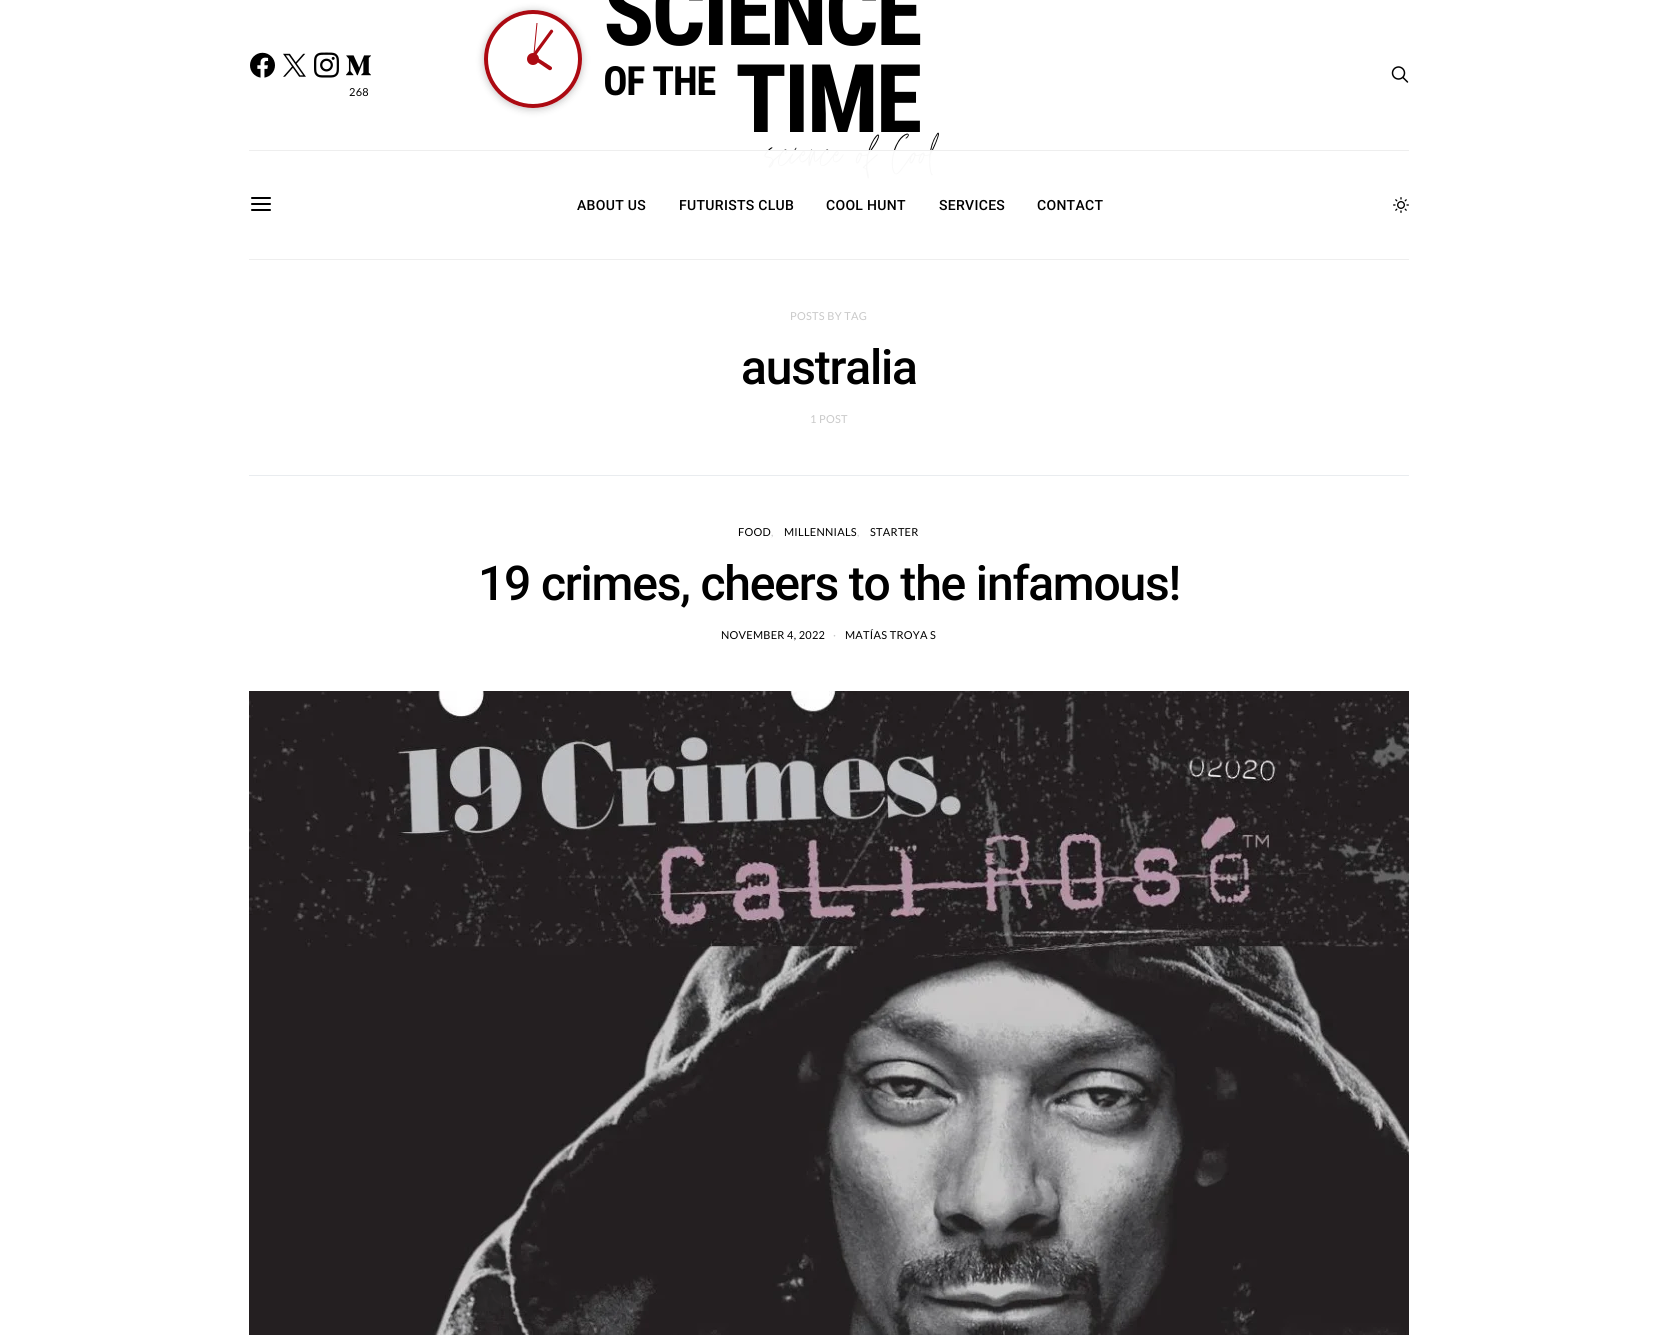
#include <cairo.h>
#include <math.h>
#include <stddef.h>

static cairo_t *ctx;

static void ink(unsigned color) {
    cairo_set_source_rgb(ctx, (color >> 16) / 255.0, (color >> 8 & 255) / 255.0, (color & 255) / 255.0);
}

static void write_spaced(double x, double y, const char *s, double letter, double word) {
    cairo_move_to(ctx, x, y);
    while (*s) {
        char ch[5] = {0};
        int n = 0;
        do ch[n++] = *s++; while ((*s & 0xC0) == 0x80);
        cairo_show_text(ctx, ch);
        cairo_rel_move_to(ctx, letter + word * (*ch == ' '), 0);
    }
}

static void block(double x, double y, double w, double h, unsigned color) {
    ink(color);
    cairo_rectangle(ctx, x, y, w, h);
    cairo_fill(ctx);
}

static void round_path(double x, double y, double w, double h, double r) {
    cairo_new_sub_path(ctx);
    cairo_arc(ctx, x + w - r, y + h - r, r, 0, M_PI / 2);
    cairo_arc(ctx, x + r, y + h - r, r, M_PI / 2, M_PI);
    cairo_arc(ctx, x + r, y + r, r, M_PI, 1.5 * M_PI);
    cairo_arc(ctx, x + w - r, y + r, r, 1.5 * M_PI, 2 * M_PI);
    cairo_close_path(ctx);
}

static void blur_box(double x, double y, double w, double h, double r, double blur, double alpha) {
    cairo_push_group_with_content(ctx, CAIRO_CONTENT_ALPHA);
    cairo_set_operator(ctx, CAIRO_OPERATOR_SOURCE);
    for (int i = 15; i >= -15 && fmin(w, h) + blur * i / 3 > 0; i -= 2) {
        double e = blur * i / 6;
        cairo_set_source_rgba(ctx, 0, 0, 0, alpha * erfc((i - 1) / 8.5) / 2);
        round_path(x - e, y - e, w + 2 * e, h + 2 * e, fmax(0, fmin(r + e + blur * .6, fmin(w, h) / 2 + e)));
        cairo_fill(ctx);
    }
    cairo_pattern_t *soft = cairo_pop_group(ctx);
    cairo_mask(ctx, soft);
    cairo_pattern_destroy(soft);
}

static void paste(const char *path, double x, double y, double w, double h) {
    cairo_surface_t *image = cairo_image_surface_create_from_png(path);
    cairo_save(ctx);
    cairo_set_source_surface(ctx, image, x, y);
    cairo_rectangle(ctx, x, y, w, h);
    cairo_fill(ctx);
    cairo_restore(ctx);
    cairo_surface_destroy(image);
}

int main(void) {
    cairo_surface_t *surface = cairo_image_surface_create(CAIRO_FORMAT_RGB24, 1657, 1335);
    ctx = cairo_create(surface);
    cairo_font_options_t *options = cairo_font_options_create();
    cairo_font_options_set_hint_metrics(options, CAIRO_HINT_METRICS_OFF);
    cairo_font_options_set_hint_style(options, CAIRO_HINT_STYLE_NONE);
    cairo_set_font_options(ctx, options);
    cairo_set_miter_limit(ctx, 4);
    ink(0xffffff);
    cairo_paint(ctx);
    cairo_save(ctx);
    cairo_set_fill_rule(ctx, CAIRO_FILL_RULE_EVEN_ODD);
    cairo_new_path(ctx);
    cairo_move_to(ctx, 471, 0);
    cairo_line_to(ctx, 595, 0);
    cairo_line_to(ctx, 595, 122);
    cairo_line_to(ctx, 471, 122);
    cairo_close_path(ctx);
    cairo_move_to(ctx, 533, 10);
    cairo_curve_to(ctx, 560, 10, 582, 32, 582, 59);
    cairo_curve_to(ctx, 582, 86, 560, 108, 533, 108);
    cairo_curve_to(ctx, 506, 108, 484, 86, 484, 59);
    cairo_curve_to(ctx, 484, 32, 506, 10, 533, 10);
    cairo_close_path(ctx);
    cairo_clip(ctx);
    ink(0x222222);
    blur_box(484, 11, 98, 98, 49, 4, 0.3);
    cairo_restore(ctx);
    cairo_arc(ctx, 533, 59, 47, 0, 2 * M_PI);
    ink(0xac0a12);
    cairo_set_line_width(ctx, 4);
    cairo_stroke(ctx);
    cairo_new_path(ctx);
    cairo_move_to(ctx, 549, 70);
    cairo_line_to(ctx, 532, 58.5);
    cairo_line_to(ctx, 534, 55.5);
    cairo_line_to(ctx, 551, 66.5);
    cairo_curve_to(ctx, 552, 67, 552.5, 68.5, 551.5, 69.5);
    cairo_curve_to(ctx, 551, 70, 550, 70.5, 549, 70);
    cairo_close_path(ctx);
    cairo_fill(ctx);
    cairo_new_path(ctx);
    cairo_move_to(ctx, 552.5, 30);
    cairo_curve_to(ctx, 553, 30.5, 553.5, 31.5, 553, 32);
    cairo_line_to(ctx, 532.5, 60);
    cairo_line_to(ctx, 530, 58);
    cairo_line_to(ctx, 550.5, 30);
    cairo_curve_to(ctx, 551, 29.5, 552, 29.5, 552.5, 30);
    cairo_close_path(ctx);
    cairo_fill(ctx);
    cairo_new_path(ctx);
    cairo_move_to(ctx, 536.5, 23);
    cairo_line_to(ctx, 537.5, 23);
    cairo_line_to(ctx, 534, 59);
    cairo_line_to(ctx, 533, 59);
    cairo_close_path(ctx);
    cairo_fill(ctx);
    cairo_arc(ctx, 533, 59, 6, 0, 2 * M_PI);
    cairo_fill(ctx);
    paste("pic1.png", 605, 0, 334, 179);
    paste("pic2.png", 1391, 66, 18, 17);
    paste("pic3.png", 250, 52, 25, 26);
    paste("pic4.png", 283, 53, 23, 24);
    paste("pic5.png", 314, 52, 25, 26);
    paste("pic6.png", 346, 55, 25, 21);
    cairo_select_font_face(ctx, "Lato", CAIRO_FONT_SLANT_NORMAL, CAIRO_FONT_WEIGHT_NORMAL);
    cairo_set_font_size(ctx, 11);
    ink(0x000000);
    write_spaced(349, 96, "268", 0.25, 0);
    cairo_set_source_rgba(ctx, 1, 1, 1, 0.97);
    cairo_rectangle(ctx, 764, 150, 169, 29);
    cairo_fill(ctx);
    block(249, 150, 1160, 1, 0xeeeeee);
    block(249, 259, 1160, 1, 0xeeeeee);
    paste("pic7.png", 251, 197, 20, 14);
    cairo_select_font_face(ctx, "Roboto Medium", CAIRO_FONT_SLANT_NORMAL, CAIRO_FONT_WEIGHT_NORMAL);
    cairo_set_font_size(ctx, 14);
    ink(0x000000);
    write_spaced(577, 210, "ABOUT US", 0.3, 0);
    write_spaced(679, 210, "FUTURISTS CLUB", 0.3, 0);
    write_spaced(826, 210, "COOL HUNT", 0.3, 0);
    write_spaced(939, 210, "SERVICES", 0.3, 0);
    write_spaced(1037, 210, "CONTACT", 0.3, 0);
    paste("pic8.png", 1393, 197, 16, 16);
    cairo_select_font_face(ctx, "Lato", CAIRO_FONT_SLANT_NORMAL, CAIRO_FONT_WEIGHT_NORMAL);
    cairo_set_font_size(ctx, 11);
    ink(0xc9c9c9);
    write_spaced(790, 320, "POSTS BY TAG", 0.25, 0);
    cairo_select_font_face(ctx, "Roboto Medium", CAIRO_FONT_SLANT_NORMAL, CAIRO_FONT_WEIGHT_NORMAL);
    cairo_set_font_size(ctx, 48);
    ink(0x000000);
    write_spaced(741, 384, "australia", -1.2, 0);
    cairo_select_font_face(ctx, "Lato", CAIRO_FONT_SLANT_NORMAL, CAIRO_FONT_WEIGHT_NORMAL);
    cairo_set_font_size(ctx, 11);
    ink(0xc9c9c9);
    write_spaced(810, 423, "1 POST", 0.25, 0);
    block(249, 475, 1160, 1, 0xe9ecef);
    ink(0x000000);
    write_spaced(738, 536, "FOOD", 0.25, 0);
    ink(0xc9c9c9);
    write_spaced(771, 536, ",", 0.25, 0);
    ink(0x000000);
    write_spaced(784, 536, "MILLENNIALS", 0.25, 0);
    ink(0xc9c9c9);
    write_spaced(857, 536, ",", 0.25, 0);
    ink(0x000000);
    write_spaced(870, 536, "STARTER", 0.25, 0);
    cairo_select_font_face(ctx, "Roboto Medium", CAIRO_FONT_SLANT_NORMAL, CAIRO_FONT_WEIGHT_NORMAL);
    cairo_set_font_size(ctx, 48);
    write_spaced(478, 600, "19 crimes, cheers to the infamous!", -1.2, 0);
    cairo_select_font_face(ctx, "Lato", CAIRO_FONT_SLANT_NORMAL, CAIRO_FONT_WEIGHT_NORMAL);
    cairo_set_font_size(ctx, 11);
    write_spaced(721, 639, "NOVEMBER 4, 2022", 0.25, 0);
    ink(0xc9c9c9);
    write_spaced(833, 639, "·", 0.25, 0);
    ink(0x000000);
    write_spaced(845, 639, "MATÍAS TROYA S", 0.25, 0);
    paste("pic9.png", 249, 691, 1160, 644);
    cairo_surface_write_to_png(surface, "screenshot.png");
    cairo_font_options_destroy(options);
    cairo_destroy(ctx);
    cairo_surface_destroy(surface);
    return 0;
}
